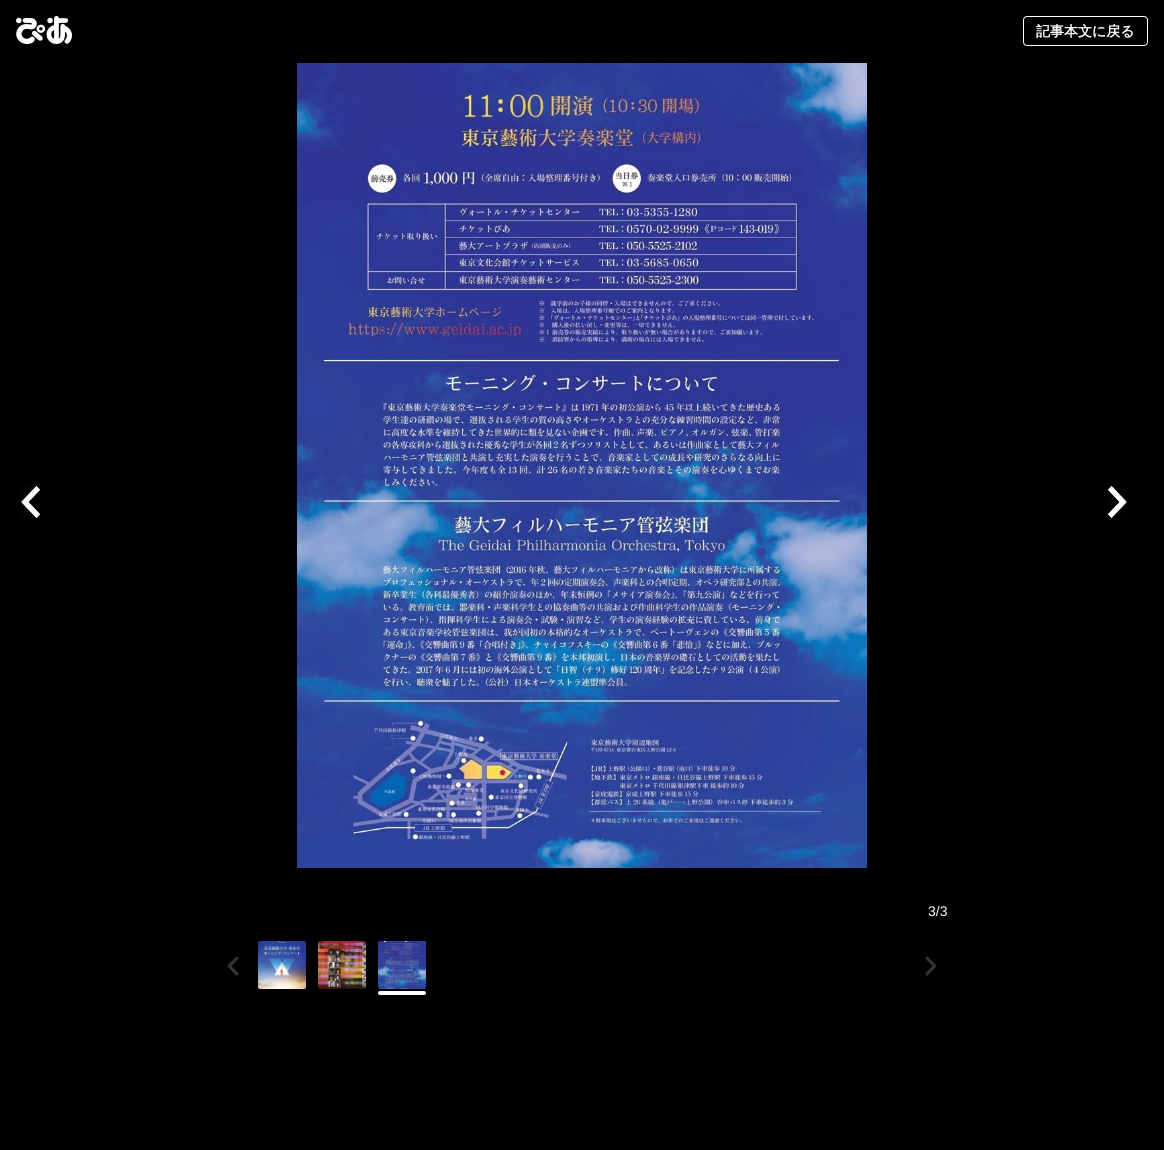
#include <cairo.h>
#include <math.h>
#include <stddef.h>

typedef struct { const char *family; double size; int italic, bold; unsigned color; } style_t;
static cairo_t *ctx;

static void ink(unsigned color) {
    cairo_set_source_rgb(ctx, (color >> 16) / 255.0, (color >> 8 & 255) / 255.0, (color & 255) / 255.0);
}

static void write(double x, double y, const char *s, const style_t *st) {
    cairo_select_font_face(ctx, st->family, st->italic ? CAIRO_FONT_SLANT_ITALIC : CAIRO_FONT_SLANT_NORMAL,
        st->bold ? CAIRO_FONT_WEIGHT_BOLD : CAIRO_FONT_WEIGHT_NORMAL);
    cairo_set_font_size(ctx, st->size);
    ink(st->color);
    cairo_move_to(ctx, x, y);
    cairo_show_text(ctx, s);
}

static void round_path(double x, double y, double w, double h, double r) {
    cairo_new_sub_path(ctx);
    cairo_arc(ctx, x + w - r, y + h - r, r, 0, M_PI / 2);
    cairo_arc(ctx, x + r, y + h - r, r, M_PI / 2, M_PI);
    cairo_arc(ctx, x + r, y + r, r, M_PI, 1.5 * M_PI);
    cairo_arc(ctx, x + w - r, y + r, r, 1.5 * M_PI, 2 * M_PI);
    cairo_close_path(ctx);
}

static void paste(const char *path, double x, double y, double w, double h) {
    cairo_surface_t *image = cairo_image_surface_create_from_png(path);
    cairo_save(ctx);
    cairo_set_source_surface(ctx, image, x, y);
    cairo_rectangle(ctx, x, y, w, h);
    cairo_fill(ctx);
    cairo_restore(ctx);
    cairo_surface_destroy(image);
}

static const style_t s1 = {"WenQuanYi Zen Hei", 14, 0, 1, 0xffffff};
static const style_t s2 = {"Liberation Sans", 14, 0, 0, 0xffffff};

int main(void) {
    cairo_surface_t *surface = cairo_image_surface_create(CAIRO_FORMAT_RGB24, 1164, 1150);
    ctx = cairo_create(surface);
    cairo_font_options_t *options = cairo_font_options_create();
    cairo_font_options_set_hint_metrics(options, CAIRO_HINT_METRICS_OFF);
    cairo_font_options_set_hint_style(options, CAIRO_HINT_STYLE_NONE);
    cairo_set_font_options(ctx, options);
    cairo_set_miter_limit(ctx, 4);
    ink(0x000000);
    cairo_paint(ctx);
    paste("pic1.png", 16, 16, 56, 28);
    round_path(1023.5, 16.5, 124, 29, 3.5);
    ink(0xffffff);
    cairo_set_line_width(ctx, 1);
    cairo_stroke(ctx);
    write(1036, 36, "記事本文に戻る", &s1);
    paste("pic2.png", 21, 486, 19, 32);
    paste("pic3.png", 1108, 486, 19, 32);
    paste("pic4.png", 297, 63, 570, 805);
    write(928, 916, "3/3", &s2);
    paste("pic5.png", 227, 956, 12, 20);
    paste("pic6.png", 258, 941, 48, 48);
    paste("pic7.png", 318, 941, 48, 48);
    paste("pic8.png", 378, 941, 48, 48);
    round_path(378, 991, 48, 4, 2);
    cairo_fill(ctx);
    paste("pic9.png", 925, 956, 12, 20);
    cairo_surface_write_to_png(surface, "screenshot.png");
    cairo_font_options_destroy(options);
    cairo_destroy(ctx);
    cairo_surface_destroy(surface);
    return 0;
}
